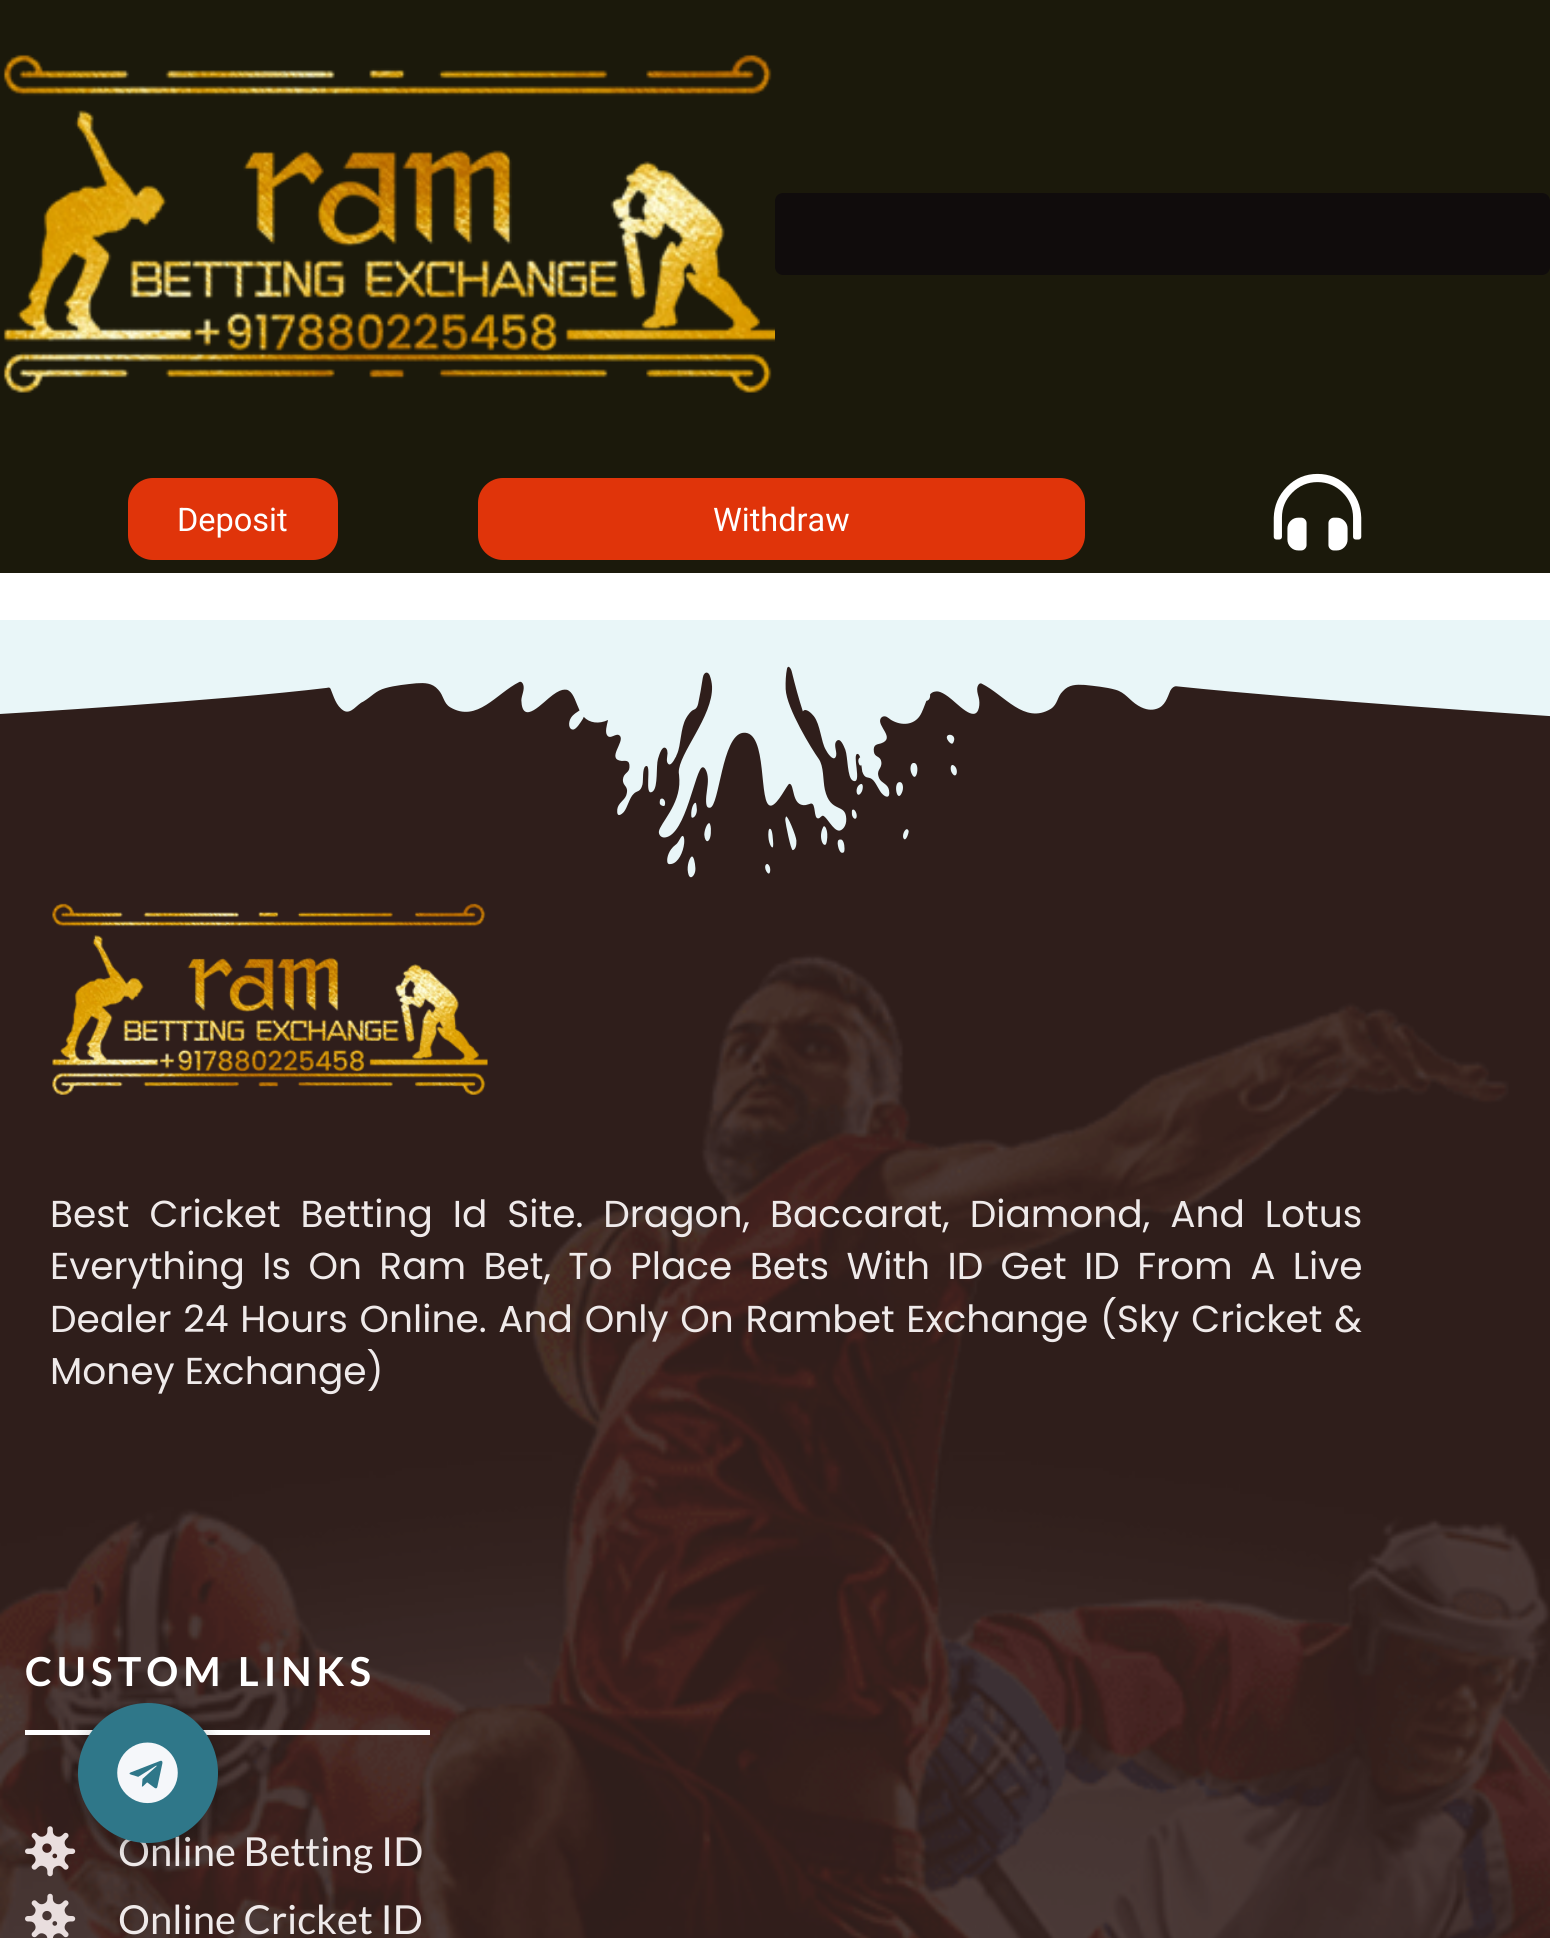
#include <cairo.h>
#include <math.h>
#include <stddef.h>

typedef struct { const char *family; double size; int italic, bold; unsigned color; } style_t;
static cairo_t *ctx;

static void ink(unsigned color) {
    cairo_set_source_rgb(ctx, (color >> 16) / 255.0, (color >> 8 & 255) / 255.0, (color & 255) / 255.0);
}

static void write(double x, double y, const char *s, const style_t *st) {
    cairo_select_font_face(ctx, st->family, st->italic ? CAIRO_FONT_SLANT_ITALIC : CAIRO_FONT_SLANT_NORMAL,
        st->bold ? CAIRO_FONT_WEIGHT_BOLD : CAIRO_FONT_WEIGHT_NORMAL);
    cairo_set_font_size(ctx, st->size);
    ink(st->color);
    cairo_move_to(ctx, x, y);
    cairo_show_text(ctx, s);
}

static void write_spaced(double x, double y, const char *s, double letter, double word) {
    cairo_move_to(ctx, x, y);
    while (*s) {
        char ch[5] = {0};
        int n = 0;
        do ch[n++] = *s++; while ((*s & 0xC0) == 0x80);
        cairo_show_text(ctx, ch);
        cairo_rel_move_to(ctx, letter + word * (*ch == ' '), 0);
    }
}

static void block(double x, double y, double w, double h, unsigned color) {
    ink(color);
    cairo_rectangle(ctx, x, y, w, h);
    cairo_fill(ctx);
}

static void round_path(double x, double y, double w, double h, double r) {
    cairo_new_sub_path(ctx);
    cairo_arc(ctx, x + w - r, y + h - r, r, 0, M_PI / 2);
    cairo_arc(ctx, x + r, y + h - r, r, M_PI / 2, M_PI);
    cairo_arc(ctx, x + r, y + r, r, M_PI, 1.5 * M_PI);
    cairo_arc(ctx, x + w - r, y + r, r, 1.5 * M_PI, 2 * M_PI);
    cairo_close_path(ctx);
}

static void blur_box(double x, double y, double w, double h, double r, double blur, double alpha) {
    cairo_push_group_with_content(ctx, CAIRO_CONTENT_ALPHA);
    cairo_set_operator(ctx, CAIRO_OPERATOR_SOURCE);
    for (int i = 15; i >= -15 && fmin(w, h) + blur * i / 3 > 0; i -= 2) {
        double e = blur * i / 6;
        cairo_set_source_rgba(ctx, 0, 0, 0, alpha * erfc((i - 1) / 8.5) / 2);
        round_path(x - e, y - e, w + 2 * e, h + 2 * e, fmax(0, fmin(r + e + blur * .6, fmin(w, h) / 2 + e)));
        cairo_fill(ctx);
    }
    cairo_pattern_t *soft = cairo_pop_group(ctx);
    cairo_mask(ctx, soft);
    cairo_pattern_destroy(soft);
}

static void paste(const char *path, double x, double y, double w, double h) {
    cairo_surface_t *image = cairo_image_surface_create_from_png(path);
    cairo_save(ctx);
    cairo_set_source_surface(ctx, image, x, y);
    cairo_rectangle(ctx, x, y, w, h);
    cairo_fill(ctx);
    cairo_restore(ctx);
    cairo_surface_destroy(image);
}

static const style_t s1 = {"Roboto", 32.5, 0, 0, 0xffffff};
static const style_t s2 = {"Poppins", 37.5, 0, 0, 0xefeaea};
static const style_t s3 = {"Lato", 40, 0, 0, 0xefeaea};

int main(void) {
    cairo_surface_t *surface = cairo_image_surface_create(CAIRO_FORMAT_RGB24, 1550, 1938);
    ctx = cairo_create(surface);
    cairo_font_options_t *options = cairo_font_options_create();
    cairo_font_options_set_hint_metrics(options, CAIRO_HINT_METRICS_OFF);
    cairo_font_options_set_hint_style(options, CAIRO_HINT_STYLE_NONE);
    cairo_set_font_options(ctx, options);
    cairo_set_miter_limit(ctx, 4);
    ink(0xffffff);
    cairo_paint(ctx);
    block(0, 0, 1550, 573, 0x1b190b);
    paste("pic1.png", 3, 54, 772, 339);
    ink(0x100c0c);
    round_path(775, 193, 775, 82, 8);
    cairo_fill(ctx);
    ink(0xe0340a);
    round_path(128, 478, 210, 82, 25);
    cairo_fill(ctx);
    write(177, 531, "Deposit", &s1);
    ink(0xe0340a);
    round_path(478, 478, 607, 82, 25);
    cairo_fill(ctx);
    write(713, 531, "Withdraw", &s1);
    paste("pic2.png", 1273, 473, 89, 78);
    block(0, 666, 1550, 1272, 0x5f3c36);
    paste("pic4.png", 0, 666, 1550, 1272);
    paste("pic3.png", 0, 620, 1550, 258);
    paste("pic5.png", 52, 903, 436, 192);
    cairo_select_font_face(ctx, "Poppins", CAIRO_FONT_SLANT_NORMAL, CAIRO_FONT_WEIGHT_NORMAL);
    cairo_set_font_size(ctx, 37.5);
    ink(0xefeaea);
    write_spaced(50, 1227, "Best Cricket Betting Id Site. Dragon, Baccarat, Diamond, And Lotus", 0, 10);
    write_spaced(50, 1279, "Everything Is On Ram Bet, To Place Bets With ID Get ID From A Live", 0, 7.4);
    write_spaced(50, 1332, "Dealer 24 Hours Online. And Only On Rambet Exchange (Sky Cricket &", 0, 1.75);
    write(50, 1384, "Money Exchange)", &s2);
    cairo_select_font_face(ctx, "Lato", CAIRO_FONT_SLANT_NORMAL, CAIRO_FONT_WEIGHT_BOLD);
    cairo_set_font_size(ctx, 40);
    ink(0xffffff);
    write_spaced(25, 1686, "CUSTOM LINKS", 5, 0);
    block(25, 1730, 405, 5, 0xffffff);
    paste("pic6.png", 25, 1826, 51, 51);
    write(118, 1866, "Online Betting ID", &s3);
    paste("pic7.png", 25, 1893, 51, 45);
    write(118, 1934, "Online Cricket ID", &s3);
    ink(0x000000);
    blur_box(75, 1705, 145, 145, 72.5, 7.5, 0.2);
    ink(0x2f7789);
    cairo_arc(ctx, 148, 1773, 70, 0, 2 * M_PI);
    cairo_fill(ctx);
    paste("pic8.png", 117, 1742, 61, 62);
    cairo_surface_write_to_png(surface, "screenshot.png");
    cairo_font_options_destroy(options);
    cairo_destroy(ctx);
    cairo_surface_destroy(surface);
    return 0;
}
